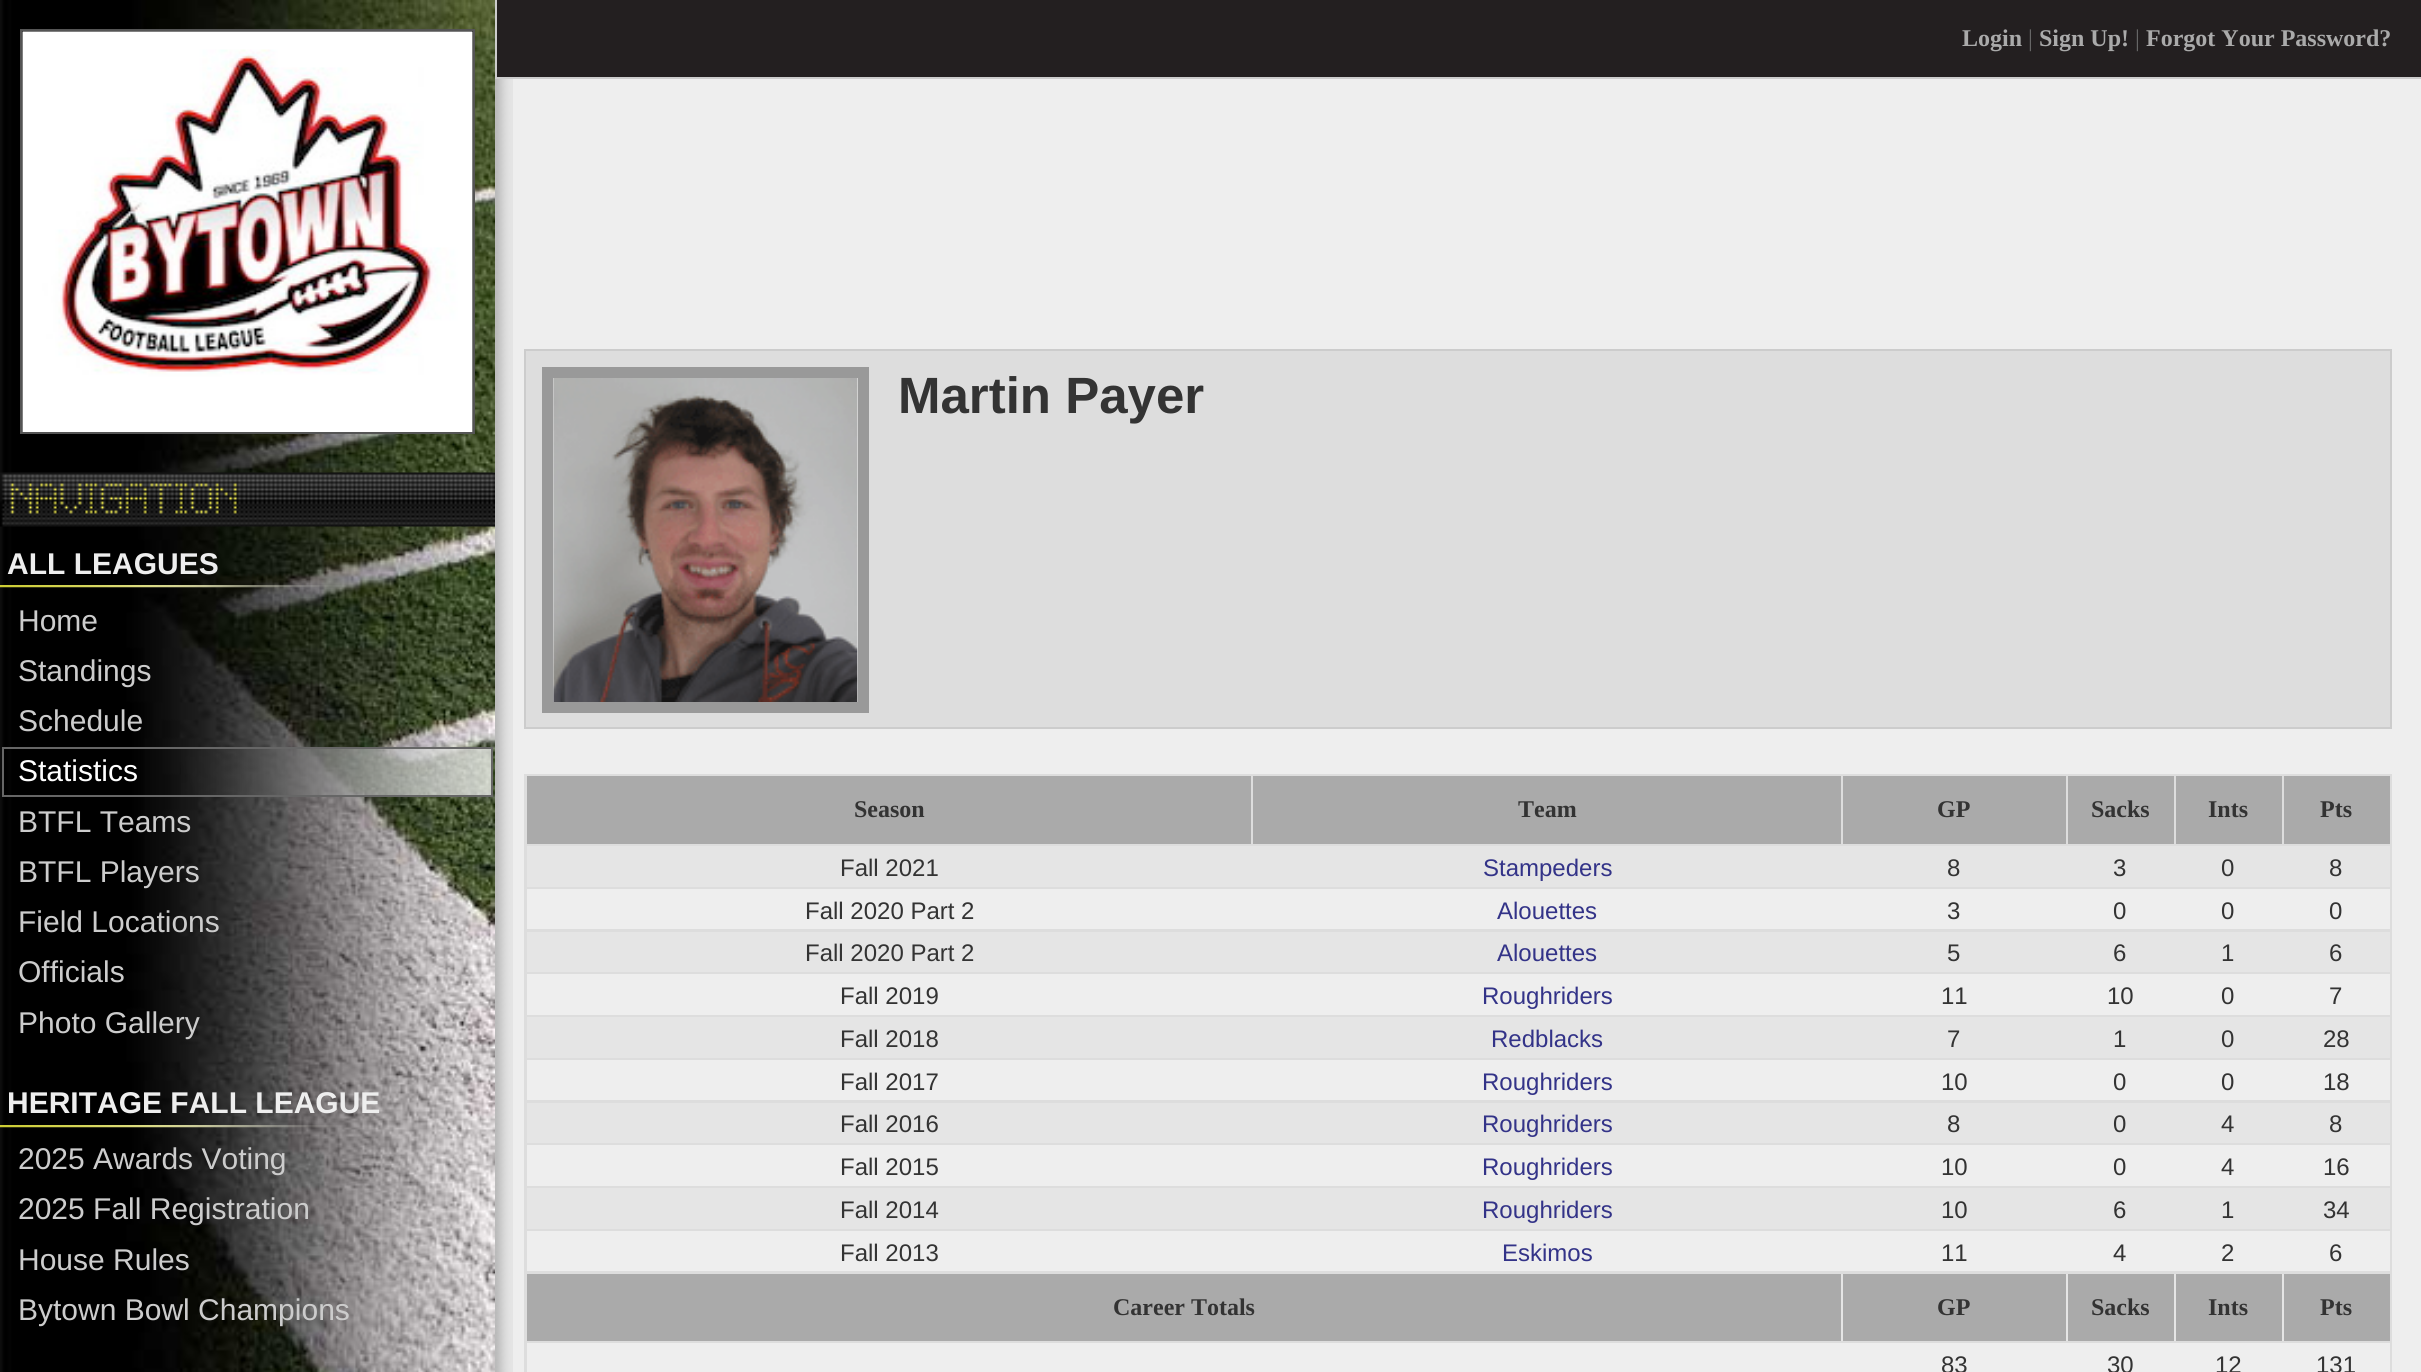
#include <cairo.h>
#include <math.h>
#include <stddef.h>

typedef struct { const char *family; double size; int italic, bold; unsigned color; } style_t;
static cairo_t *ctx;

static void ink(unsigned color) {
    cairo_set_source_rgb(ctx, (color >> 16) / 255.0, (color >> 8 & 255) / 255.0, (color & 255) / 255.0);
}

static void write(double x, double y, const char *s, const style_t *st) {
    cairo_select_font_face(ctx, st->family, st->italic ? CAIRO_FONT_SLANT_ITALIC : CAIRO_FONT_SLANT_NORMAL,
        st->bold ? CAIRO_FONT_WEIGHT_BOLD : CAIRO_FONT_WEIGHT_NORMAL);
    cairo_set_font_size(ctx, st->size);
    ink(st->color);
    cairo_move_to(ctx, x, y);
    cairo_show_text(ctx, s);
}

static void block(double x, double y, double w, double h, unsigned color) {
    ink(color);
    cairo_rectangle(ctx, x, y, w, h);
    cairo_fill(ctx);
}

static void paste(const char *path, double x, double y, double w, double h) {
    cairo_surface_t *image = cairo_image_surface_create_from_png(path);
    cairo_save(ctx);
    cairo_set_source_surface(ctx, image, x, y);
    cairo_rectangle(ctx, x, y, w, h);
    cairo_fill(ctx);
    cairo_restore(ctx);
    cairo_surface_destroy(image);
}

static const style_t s1 = {"Liberation Sans", 30, 0, 1, 0xeeeeee};
static const style_t s2 = {"Liberation Sans", 30, 0, 0, 0xcccccc};
static const style_t s3 = {"Liberation Sans", 30, 0, 0, 0xffffff};
static const style_t s4 = {"Liberation Serif", 24, 0, 1, 0xaaaaaa};
static const style_t s5 = {"Liberation Serif", 24, 0, 0, 0x666666};
static const style_t s6 = {"Liberation Sans", 51, 0, 1, 0x333333};
static const style_t s7 = {"Liberation Serif", 24, 0, 1, 0x333333};
static const style_t s8 = {"Liberation Sans", 24, 0, 0, 0x333333};
static const style_t s9 = {"Liberation Sans", 24, 0, 0, 0x333388};

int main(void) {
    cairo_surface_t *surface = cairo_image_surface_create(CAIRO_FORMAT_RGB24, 2421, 1372);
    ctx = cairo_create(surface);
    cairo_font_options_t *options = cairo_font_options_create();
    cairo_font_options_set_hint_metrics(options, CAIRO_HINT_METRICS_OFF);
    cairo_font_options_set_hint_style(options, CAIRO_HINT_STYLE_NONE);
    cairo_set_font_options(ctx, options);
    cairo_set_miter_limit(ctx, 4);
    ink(0xffffff);
    cairo_paint(ctx);
    paste("pic1.png", 0, 0, 495, 1372);
    block(132, 31, 341, 401, 0x000000);
    cairo_rectangle(ctx, 21, 30, 453, 403);
    ink(0x555555);
    cairo_stroke(ctx);
    paste("pic2.png", 22, 31, 451, 401);
    paste("pic3.png", 0, 472, 495, 55);
    paste("pic4.png", 0, 585, 346, 3);
    write(7, 574, "ALL LEAGUES", &s1);
    write(18, 631, "Home", &s2);
    write(18, 681, "Standings", &s2);
    write(18, 731, "Schedule", &s2);
    paste("pic5.png", 181, 749, 310, 46);
    cairo_rectangle(ctx, 3, 748, 489, 48);
    ink(0x666666);
    cairo_stroke(ctx);
    write(18, 781, "Statistics", &s3);
    write(18, 832, "BTFL Teams", &s2);
    write(18, 882, "BTFL Players", &s2);
    write(18, 932, "Field Locations", &s2);
    write(18, 982, "Officials", &s2);
    write(18, 1033, "Photo Gallery", &s2);
    paste("pic6.png", 0, 1125, 346, 3);
    write(7, 1113, "HERITAGE FALL LEAGUE", &s1);
    write(18, 1169, "2025 Awards Voting", &s2);
    write(18, 1219, "2025 Fall Registration", &s2);
    write(18, 1270, "House Rules", &s2);
    write(18, 1320, "Bytown Bowl Champions", &s2);
    block(513, 79, 1908, 1293, 0xeeeeee);
    paste("pic7.png", 495, 79, 18, 1293);
    block(495, 77, 1926, 2, 0xcccccc);
    block(495, 0, 2, 79, 0xcccccc);
    block(497, 0, 1924, 77, 0x231f20);
    write(1962, 46, "Login", &s4);
    write(2028, 46, "|", &s5);
    write(2039, 46, "Sign Up!", &s4);
    write(2135, 46, "|", &s5);
    write(2146, 46, "Forgot Your Password?", &s4);
    ink(0xdddddd);
    cairo_rectangle(ctx, 525, 350, 1866, 378);
    cairo_fill_preserve(ctx);
    ink(0xcccccc);
    cairo_stroke(ctx);
    cairo_rectangle(ctx, 547.5, 372.5, 316, 335);
    ink(0x999999);
    cairo_set_line_width(ctx, 11);
    cairo_stroke(ctx);
    paste("pic8.png", 553, 378, 305, 324);
    write(898, 413, "Martin Payer", &s6);
    block(524, 774, 1868, 598, 0xdddddd);
    block(527, 776, 724, 68, 0xaaaaaa);
    write(854, 817, "Season", &s7);
    block(1253, 776, 588, 68, 0xaaaaaa);
    write(1518, 817, "Team", &s7);
    block(1843, 776, 223, 68, 0xaaaaaa);
    write(1937, 817, "GP", &s7);
    block(2068, 776, 106, 68, 0xaaaaaa);
    write(2091, 817, "Sacks", &s7);
    block(2176, 776, 106, 68, 0xaaaaaa);
    write(2208, 817, "Ints", &s7);
    block(2284, 776, 106, 68, 0xaaaaaa);
    write(2320, 817, "Pts", &s7);
    block(527, 846, 1863, 41, 0xe5e5e5);
    write(840, 876, "Fall 2021", &s8);
    write(1483, 876, "Stampeders", &s9);
    write(1947, 876, "8", &s8);
    write(2113, 876, "3", &s8);
    write(2221, 876, "0", &s8);
    write(2329, 876, "8", &s8);
    block(527, 889, 1863, 40, 0xeeeeee);
    write(805, 919, "Fall 2020 Part 2", &s8);
    write(1497, 919, "Alouettes", &s9);
    write(1947, 919, "3", &s8);
    write(2113, 919, "0", &s8);
    write(2221, 919, "0", &s8);
    write(2329, 919, "0", &s8);
    block(527, 932, 1863, 40, 0xe5e5e5);
    write(805, 961, "Fall 2020 Part 2", &s8);
    write(1497, 961, "Alouettes", &s9);
    write(1947, 961, "5", &s8);
    write(2113, 961, "6", &s8);
    write(2221, 961, "1", &s8);
    write(2329, 961, "6", &s8);
    block(527, 974, 1863, 41, 0xeeeeee);
    write(840, 1004, "Fall 2019", &s8);
    write(1482, 1004, "Roughriders", &s9);
    write(1941, 1004, "11", &s8);
    write(2107, 1004, "10", &s8);
    write(2221, 1004, "0", &s8);
    write(2329, 1004, "7", &s8);
    block(527, 1017, 1863, 41, 0xe5e5e5);
    write(840, 1047, "Fall 2018", &s8);
    write(1491, 1047, "Redblacks", &s9);
    write(1947, 1047, "7", &s8);
    write(2113, 1047, "1", &s8);
    write(2221, 1047, "0", &s8);
    write(2323, 1047, "28", &s8);
    block(527, 1060, 1863, 40, 0xeeeeee);
    write(840, 1090, "Fall 2017", &s8);
    write(1482, 1090, "Roughriders", &s9);
    write(1941, 1090, "10", &s8);
    write(2113, 1090, "0", &s8);
    write(2221, 1090, "0", &s8);
    write(2323, 1090, "18", &s8);
    block(527, 1103, 1863, 40, 0xe5e5e5);
    write(840, 1132, "Fall 2016", &s8);
    write(1482, 1132, "Roughriders", &s9);
    write(1947, 1132, "8", &s8);
    write(2113, 1132, "0", &s8);
    write(2221, 1132, "4", &s8);
    write(2329, 1132, "8", &s8);
    block(527, 1145, 1863, 41, 0xeeeeee);
    write(840, 1175, "Fall 2015", &s8);
    write(1482, 1175, "Roughriders", &s9);
    write(1941, 1175, "10", &s8);
    write(2113, 1175, "0", &s8);
    write(2221, 1175, "4", &s8);
    write(2323, 1175, "16", &s8);
    block(527, 1188, 1863, 41, 0xe5e5e5);
    write(840, 1218, "Fall 2014", &s8);
    write(1482, 1218, "Roughriders", &s9);
    write(1941, 1218, "10", &s8);
    write(2113, 1218, "6", &s8);
    write(2221, 1218, "1", &s8);
    write(2323, 1218, "34", &s8);
    block(527, 1231, 1863, 40, 0xeeeeee);
    write(840, 1261, "Fall 2013", &s8);
    write(1502, 1261, "Eskimos", &s9);
    write(1941, 1261, "11", &s8);
    write(2113, 1261, "4", &s8);
    write(2221, 1261, "2", &s8);
    write(2329, 1261, "6", &s8);
    block(1841, 1274, 443, 67, 0xe5e5e5);
    block(527, 1274, 1314, 67, 0xaaaaaa);
    write(1113, 1315, "Career Totals", &s7);
    block(1843, 1274, 223, 67, 0xaaaaaa);
    write(1937, 1315, "GP", &s7);
    block(2068, 1274, 106, 67, 0xaaaaaa);
    write(2091, 1315, "Sacks", &s7);
    block(2176, 1274, 106, 67, 0xaaaaaa);
    write(2208, 1315, "Ints", &s7);
    block(2284, 1274, 106, 67, 0xaaaaaa);
    write(2320, 1315, "Pts", &s7);
    block(527, 1343, 1863, 29, 0xeeeeee);
    write(1941, 1373, "83", &s8);
    write(2107, 1373, "30", &s8);
    write(2215, 1373, "12", &s8);
    write(2316, 1373, "131", &s8);
    cairo_surface_write_to_png(surface, "screenshot.png");
    cairo_font_options_destroy(options);
    cairo_destroy(ctx);
    cairo_surface_destroy(surface);
    return 0;
}
